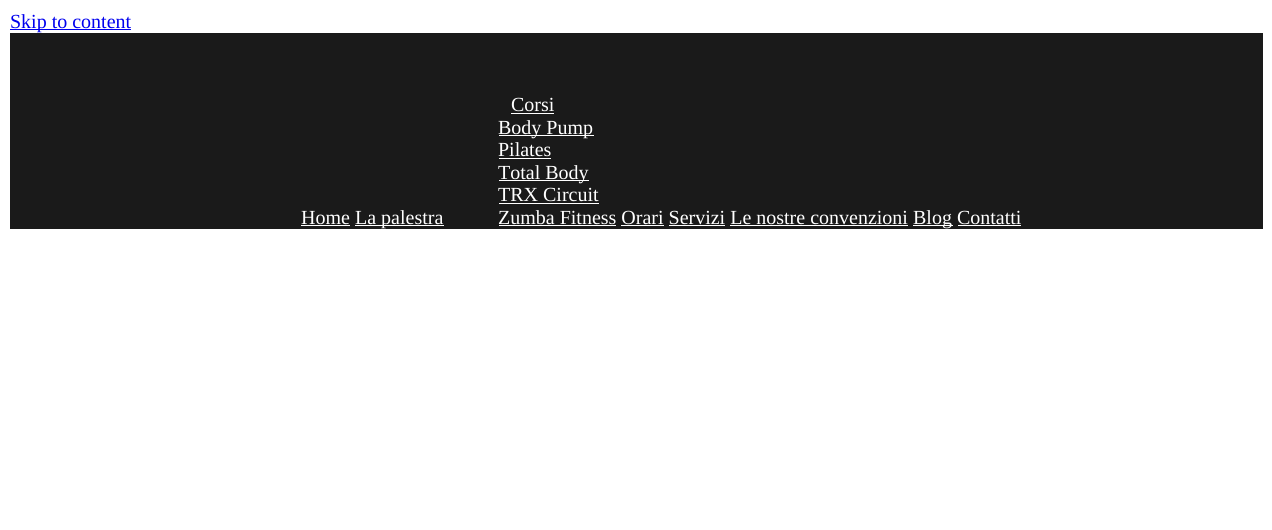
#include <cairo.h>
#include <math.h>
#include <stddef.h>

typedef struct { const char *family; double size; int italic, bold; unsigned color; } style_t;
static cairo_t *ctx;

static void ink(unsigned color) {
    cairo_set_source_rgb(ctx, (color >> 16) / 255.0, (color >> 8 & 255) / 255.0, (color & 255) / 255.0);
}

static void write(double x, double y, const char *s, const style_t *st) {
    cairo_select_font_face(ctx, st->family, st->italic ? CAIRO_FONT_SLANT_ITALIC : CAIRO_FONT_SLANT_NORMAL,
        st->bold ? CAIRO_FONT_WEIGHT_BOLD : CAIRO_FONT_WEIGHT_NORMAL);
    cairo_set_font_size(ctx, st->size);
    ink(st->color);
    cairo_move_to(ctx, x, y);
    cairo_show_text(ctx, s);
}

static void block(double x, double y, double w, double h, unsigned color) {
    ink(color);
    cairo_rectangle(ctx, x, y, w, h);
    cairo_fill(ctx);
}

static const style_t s1 = {"Liberation Serif", 20, 0, 0, 0x0000ee};
static const style_t s2 = {"Liberation Serif", 20, 0, 0, 0xffffff};

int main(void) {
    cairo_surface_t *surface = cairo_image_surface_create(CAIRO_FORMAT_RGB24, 1272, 530);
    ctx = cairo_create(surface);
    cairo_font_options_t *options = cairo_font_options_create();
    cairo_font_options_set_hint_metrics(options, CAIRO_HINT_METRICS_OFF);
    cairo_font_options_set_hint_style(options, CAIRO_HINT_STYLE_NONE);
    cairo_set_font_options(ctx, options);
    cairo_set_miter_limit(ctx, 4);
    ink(0xffffff);
    cairo_paint(ctx);
    block(10, 29, 121, 1, 0x0000ee);
    write(10, 28, "Skip to content", &s1);
    block(10, 33, 1253, 196, 0x1a1a1a);
    write(301, 224, "Home", &s2);
    block(301, 225, 49, 1, 0xffffff);
    block(355, 225, 89, 1, 0xffffff);
    write(355, 224, "La palestra", &s2);
    write(511, 111, "Corsi", &s2);
    block(511, 113, 43, 1, 0xffffff);
    block(499, 135, 95, 1, 0xffffff);
    write(498, 134, "Body Pump", &s2);
    write(498, 156, "Pilates", &s2);
    block(499, 158, 52, 1, 0xffffff);
    block(499, 180, 90, 1, 0xffffff);
    write(498, 179, "Total Body", &s2);
    write(498, 201, "TRX Circuit", &s2);
    block(499, 203, 100, 1, 0xffffff);
    write(498, 224, "Zumba Fitness Orari Servizi Le nostre convenzioni", &s2);
    block(499, 225, 117, 1, 0xffffff);
    block(913, 225, 40, 1, 0xffffff);
    write(913, 224, "Blog Contatti", &s2);
    block(621, 225, 43, 1, 0xffffff);
    block(669, 225, 56, 1, 0xffffff);
    block(730, 225, 178, 1, 0xffffff);
    block(958, 225, 63, 1, 0xffffff);
    cairo_surface_write_to_png(surface, "screenshot.png");
    cairo_font_options_destroy(options);
    cairo_destroy(ctx);
    cairo_surface_destroy(surface);
    return 0;
}
